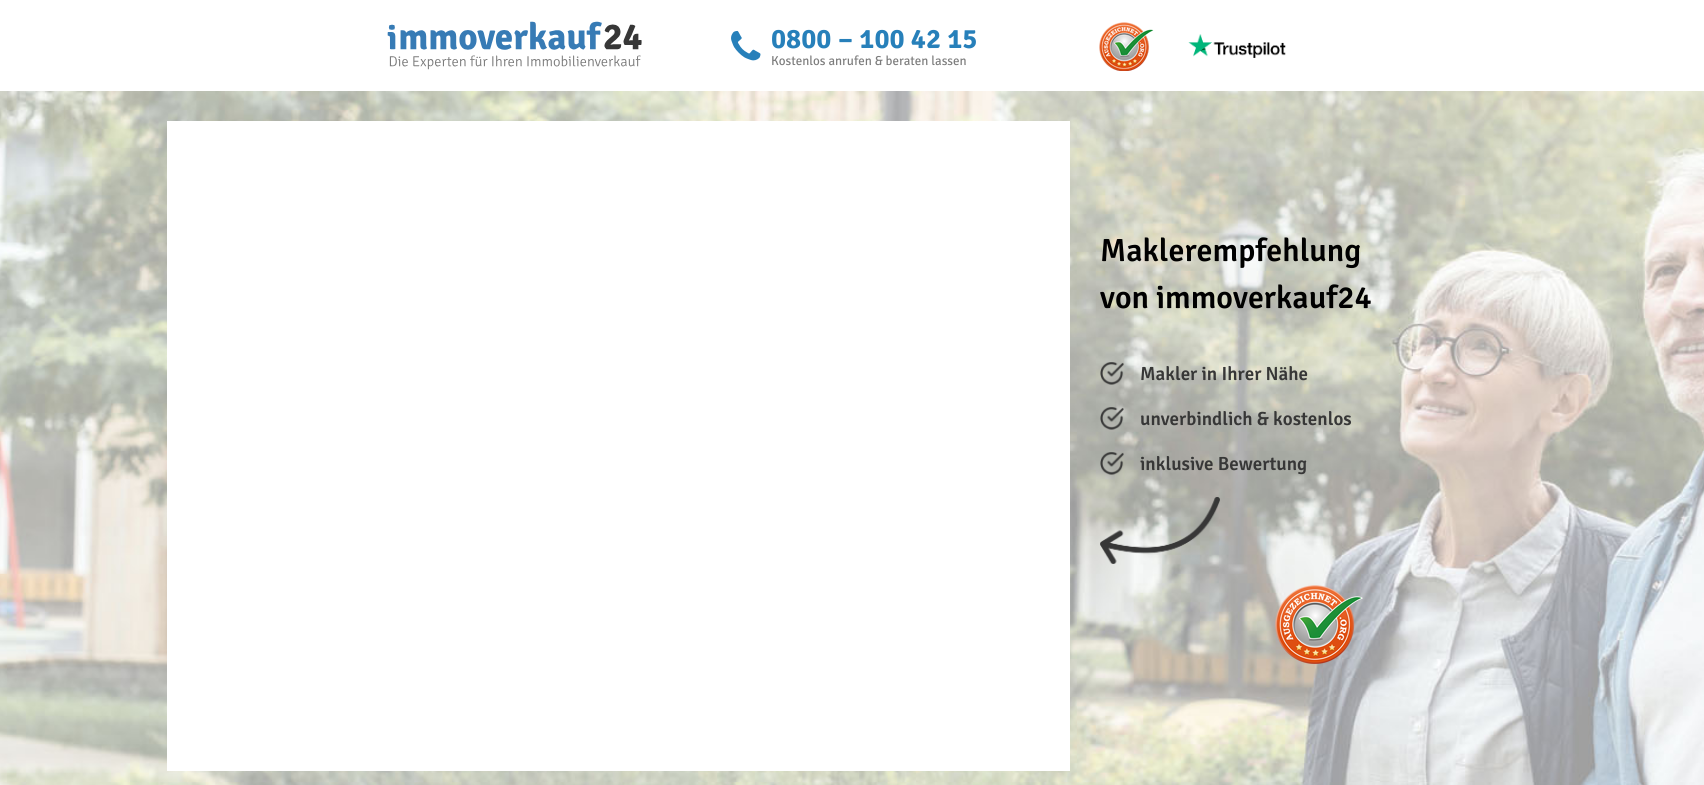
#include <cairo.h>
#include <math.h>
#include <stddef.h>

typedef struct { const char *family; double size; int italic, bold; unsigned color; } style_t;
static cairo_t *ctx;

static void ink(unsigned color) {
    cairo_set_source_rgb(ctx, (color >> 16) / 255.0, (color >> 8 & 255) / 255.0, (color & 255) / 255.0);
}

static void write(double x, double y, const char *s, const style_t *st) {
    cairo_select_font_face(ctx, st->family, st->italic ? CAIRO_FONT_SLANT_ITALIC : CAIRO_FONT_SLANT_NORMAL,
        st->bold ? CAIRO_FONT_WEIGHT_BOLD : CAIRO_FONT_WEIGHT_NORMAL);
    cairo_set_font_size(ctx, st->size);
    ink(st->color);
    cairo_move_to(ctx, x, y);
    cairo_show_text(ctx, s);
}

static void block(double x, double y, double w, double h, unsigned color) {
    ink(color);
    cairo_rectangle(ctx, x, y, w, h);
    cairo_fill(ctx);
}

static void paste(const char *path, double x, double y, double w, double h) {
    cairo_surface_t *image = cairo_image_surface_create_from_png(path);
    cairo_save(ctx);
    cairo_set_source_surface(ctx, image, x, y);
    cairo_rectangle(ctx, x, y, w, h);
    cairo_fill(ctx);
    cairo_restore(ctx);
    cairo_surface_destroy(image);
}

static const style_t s1 = {"Signika Negative", 28, 0, 1, 0x2780ba};
static const style_t s2 = {"Signika Negative", 13, 0, 0, 0x7c7c7c};
static const style_t s3 = {"Signika Negative SemiBold", 32, 0, 0, 0x000000};
static const style_t s4 = {"Signika Negative SemiBold", 19, 0, 0, 0x373737};

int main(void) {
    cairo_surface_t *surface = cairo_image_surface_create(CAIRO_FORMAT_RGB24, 1704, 785);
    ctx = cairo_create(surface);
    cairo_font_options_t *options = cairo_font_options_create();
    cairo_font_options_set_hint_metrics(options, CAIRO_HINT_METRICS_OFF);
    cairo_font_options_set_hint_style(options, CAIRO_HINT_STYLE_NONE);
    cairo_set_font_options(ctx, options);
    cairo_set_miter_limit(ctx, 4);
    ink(0xffffff);
    cairo_paint(ctx);
    paste("pic1.png", 387, 21, 255, 49);
    paste("pic2.png", 731, 30, 30, 31);
    write(771, 48, "0800 – 100 42 15", &s1);
    write(771, 65, "Kostenlos anrufen & beraten lassen", &s2);
    paste("pic3.png", 1099, 22, 55, 49);
    paste("pic4.png", 1188, 34, 98, 24);
    paste("pic5.png", 0, 91, 1704, 694);
    block(167, 121, 903, 650, 0xffffff);
    write(1100, 261, "Maklerempfehlung", &s3);
    write(1100, 308, "von immoverkauf24", &s3);
    paste("pic6.png", 1100, 362, 24, 23);
    write(1140, 380, "Makler in Ihrer Nähe", &s4);
    paste("pic7.png", 1100, 407, 24, 23);
    write(1140, 425, "unverbindlich & kostenlos", &s4);
    paste("pic8.png", 1100, 452, 24, 23);
    write(1140, 470, "inklusive Bewertung", &s4);
    paste("pic9.png", 1100, 497, 120, 67);
    paste("pic10.png", 1275, 585, 88, 79);
    cairo_surface_write_to_png(surface, "screenshot.png");
    cairo_font_options_destroy(options);
    cairo_destroy(ctx);
    cairo_surface_destroy(surface);
    return 0;
}
